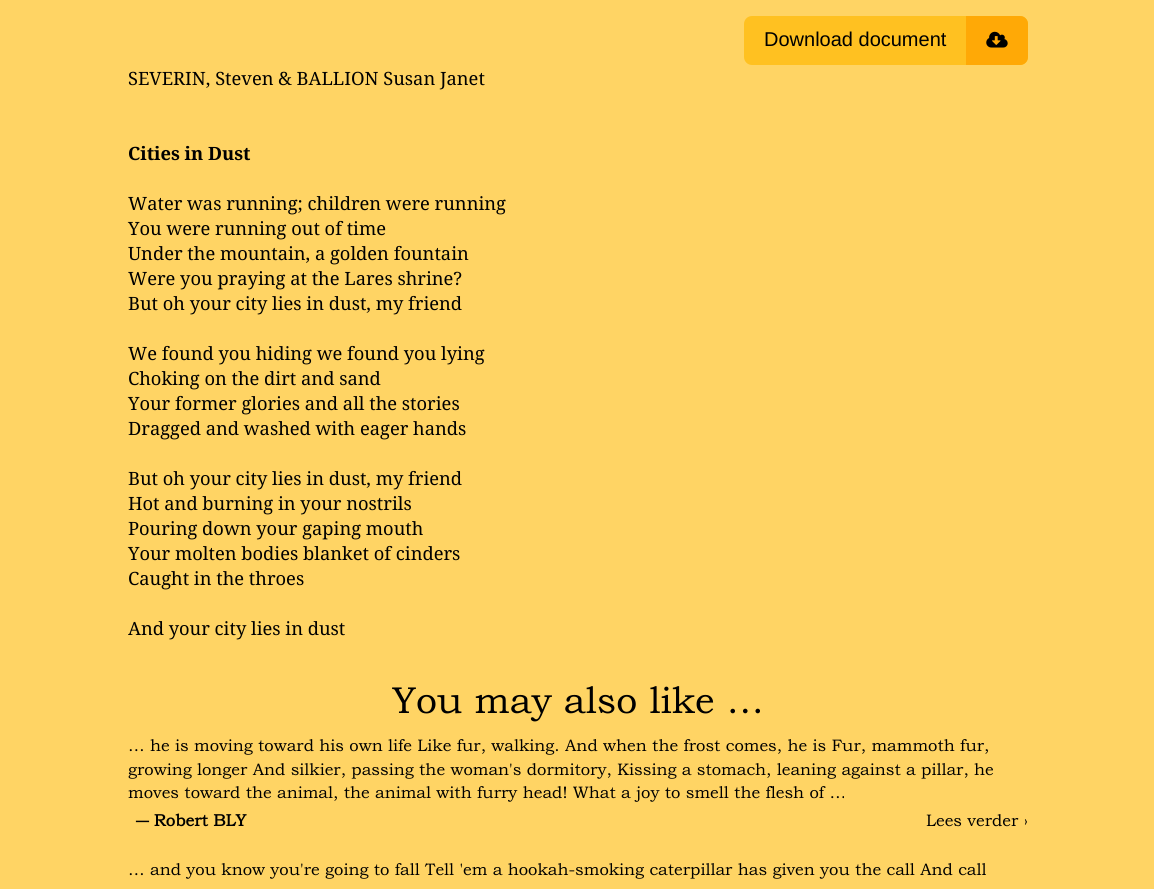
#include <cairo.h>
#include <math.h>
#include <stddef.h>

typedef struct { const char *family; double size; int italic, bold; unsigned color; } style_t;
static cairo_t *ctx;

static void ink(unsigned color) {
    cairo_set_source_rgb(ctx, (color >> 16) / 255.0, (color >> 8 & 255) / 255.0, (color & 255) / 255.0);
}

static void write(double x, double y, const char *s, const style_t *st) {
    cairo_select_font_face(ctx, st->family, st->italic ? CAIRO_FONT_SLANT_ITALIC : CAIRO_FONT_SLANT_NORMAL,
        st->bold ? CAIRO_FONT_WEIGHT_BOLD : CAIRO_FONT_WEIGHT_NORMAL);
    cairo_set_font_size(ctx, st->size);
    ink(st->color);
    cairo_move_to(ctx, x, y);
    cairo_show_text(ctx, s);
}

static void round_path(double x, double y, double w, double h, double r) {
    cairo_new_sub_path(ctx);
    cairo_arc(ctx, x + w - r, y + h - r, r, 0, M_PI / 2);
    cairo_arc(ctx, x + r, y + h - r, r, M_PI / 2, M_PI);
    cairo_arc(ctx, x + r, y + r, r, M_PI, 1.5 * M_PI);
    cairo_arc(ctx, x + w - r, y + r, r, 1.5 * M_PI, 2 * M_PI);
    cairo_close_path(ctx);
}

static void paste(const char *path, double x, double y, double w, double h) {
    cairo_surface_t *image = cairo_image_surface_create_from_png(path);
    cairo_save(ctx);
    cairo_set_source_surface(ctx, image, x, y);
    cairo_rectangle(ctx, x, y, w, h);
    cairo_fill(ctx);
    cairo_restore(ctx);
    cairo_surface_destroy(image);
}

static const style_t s1 = {"Liberation Sans", 20, 0, 0, 0x000000};
static const style_t s2 = {"Noto Serif", 18.3, 0, 0, 0x000000};
static const style_t s3 = {"Noto Serif", 18.3, 0, 1, 0x000000};
static const style_t s4 = {"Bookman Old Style", 37.5, 0, 0, 0x000000};
static const style_t s5 = {"Bookman Old Style", 16.67, 0, 0, 0x000000};
static const style_t s6 = {"Bookman Old Style", 16.67, 0, 1, 0x000000};

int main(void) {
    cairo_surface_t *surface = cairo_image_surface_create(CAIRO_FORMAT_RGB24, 1154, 889);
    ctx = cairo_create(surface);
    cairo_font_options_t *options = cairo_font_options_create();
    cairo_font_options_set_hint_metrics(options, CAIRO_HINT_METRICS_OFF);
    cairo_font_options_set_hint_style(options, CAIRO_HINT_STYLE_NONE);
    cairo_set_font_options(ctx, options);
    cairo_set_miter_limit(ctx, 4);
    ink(0xffd464);
    cairo_paint(ctx);
    ink(0xffc121);
    round_path(744, 16, 284, 49, 8);
    cairo_fill(ctx);
    write(764, 46, "Download document", &s1);
    ink(0xffa906);
    cairo_new_path(ctx);
    cairo_move_to(ctx, 966, 16);
    cairo_line_to(ctx, 1020, 16);
    cairo_curve_to(ctx, 1024.5, 16, 1028, 19.5, 1028, 24);
    cairo_line_to(ctx, 1028, 57);
    cairo_curve_to(ctx, 1028, 61.5, 1024.5, 65, 1020, 65);
    cairo_line_to(ctx, 966, 65);
    cairo_close_path(ctx);
    cairo_fill(ctx);
    paste("pic1.png", 986, 31, 22, 17);
    write(128, 85, "SEVERIN, Steven & BALLION Susan Janet", &s2);
    write(128, 160, "Cities in Dust", &s3);
    write(128, 210, "Water was running; children were running", &s2);
    write(128, 235, "You were running out of time", &s2);
    write(128, 260, "Under the mountain, a golden fountain", &s2);
    write(128, 285, "Were you praying at the Lares shrine?", &s2);
    write(128, 310, "But oh your city lies in dust, my friend", &s2);
    write(128, 360, "We found you hiding we found you lying", &s2);
    write(128, 385, "Choking on the dirt and sand", &s2);
    write(128, 410, "Your former glories and all the stories", &s2);
    write(128, 435, "Dragged and washed with eager hands", &s2);
    write(128, 485, "But oh your city lies in dust, my friend", &s2);
    write(128, 510, "Hot and burning in your nostrils", &s2);
    write(128, 535, "Pouring down your gaping mouth", &s2);
    write(128, 560, "Your molten bodies blanket of cinders", &s2);
    write(128, 585, "Caught in the throes", &s2);
    write(128, 635, "And your city lies in dust", &s2);
    write(392, 713, "You may also like …", &s4);
    write(128, 751, "… he is moving toward his own life Like fur, walking. And when the frost comes, he is Fur, mammoth fur,", &s5);
    write(128, 775, "growing longer And silkier, passing the woman's dormitory, Kissing a stomach, leaning against a pillar, he", &s5);
    write(128, 798, "moves toward the animal, the animal with furry head! What a joy to smell the flesh of …", &s5);
    write(136, 826, "― Robert BLY", &s6);
    write(926, 826, "Lees verder ›", &s5);
    write(128, 875, "… and you know you're going to fall Tell 'em a hookah-smoking caterpillar has given you the call And call", &s5);
    cairo_surface_write_to_png(surface, "screenshot.png");
    cairo_font_options_destroy(options);
    cairo_destroy(ctx);
    cairo_surface_destroy(surface);
    return 0;
}
